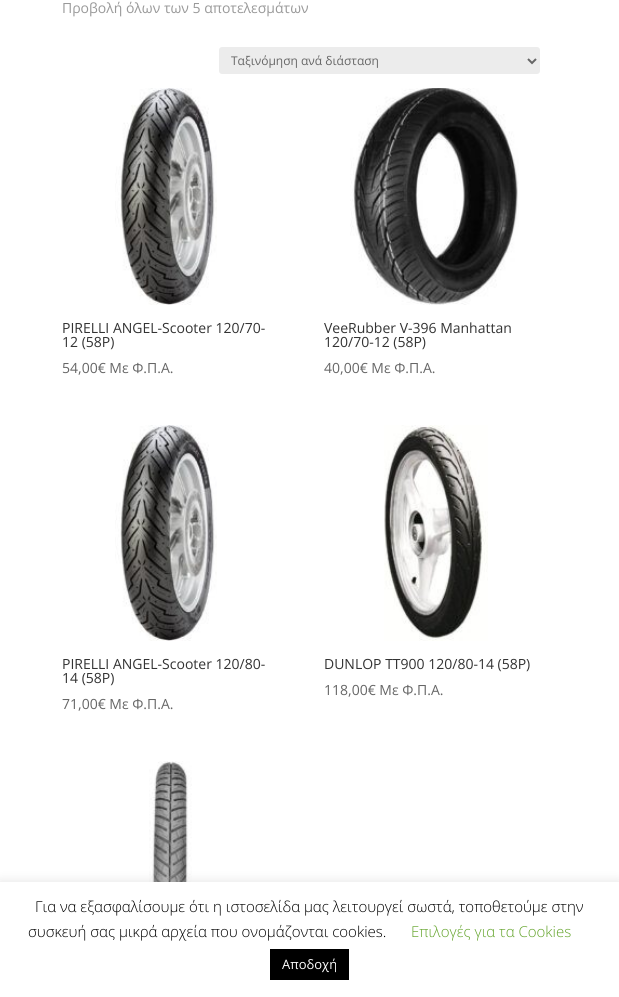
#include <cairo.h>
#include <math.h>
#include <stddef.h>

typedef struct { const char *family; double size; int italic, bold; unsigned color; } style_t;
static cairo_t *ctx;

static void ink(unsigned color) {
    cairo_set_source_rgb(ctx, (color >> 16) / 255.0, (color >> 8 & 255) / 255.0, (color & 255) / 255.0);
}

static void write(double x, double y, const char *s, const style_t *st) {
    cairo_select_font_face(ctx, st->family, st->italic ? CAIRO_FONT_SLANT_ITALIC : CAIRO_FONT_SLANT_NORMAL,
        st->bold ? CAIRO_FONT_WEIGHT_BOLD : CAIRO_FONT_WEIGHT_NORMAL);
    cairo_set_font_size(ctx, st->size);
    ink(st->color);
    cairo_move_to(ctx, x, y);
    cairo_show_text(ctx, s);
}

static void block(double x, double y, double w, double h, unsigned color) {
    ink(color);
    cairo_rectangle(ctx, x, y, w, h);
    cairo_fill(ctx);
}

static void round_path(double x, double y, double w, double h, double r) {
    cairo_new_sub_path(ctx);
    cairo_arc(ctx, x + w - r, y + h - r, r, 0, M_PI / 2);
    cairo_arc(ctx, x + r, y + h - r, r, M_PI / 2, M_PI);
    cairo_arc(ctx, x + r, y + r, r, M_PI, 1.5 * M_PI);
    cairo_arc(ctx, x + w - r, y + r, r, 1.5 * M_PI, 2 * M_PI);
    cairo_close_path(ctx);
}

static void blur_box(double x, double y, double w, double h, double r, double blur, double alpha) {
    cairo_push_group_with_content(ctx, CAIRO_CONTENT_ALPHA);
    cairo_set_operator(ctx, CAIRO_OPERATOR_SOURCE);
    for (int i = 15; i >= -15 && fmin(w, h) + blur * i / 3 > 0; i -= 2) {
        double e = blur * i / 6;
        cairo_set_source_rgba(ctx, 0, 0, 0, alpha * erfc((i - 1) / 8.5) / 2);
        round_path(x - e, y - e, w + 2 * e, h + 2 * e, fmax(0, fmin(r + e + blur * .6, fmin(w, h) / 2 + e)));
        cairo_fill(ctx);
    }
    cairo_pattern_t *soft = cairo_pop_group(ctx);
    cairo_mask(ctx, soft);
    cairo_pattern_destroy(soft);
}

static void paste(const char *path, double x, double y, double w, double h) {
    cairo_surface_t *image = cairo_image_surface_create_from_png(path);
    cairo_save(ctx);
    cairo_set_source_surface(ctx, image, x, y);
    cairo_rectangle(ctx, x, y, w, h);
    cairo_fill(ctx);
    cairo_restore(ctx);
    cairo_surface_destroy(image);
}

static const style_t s1 = {"Open Sans", 14, 0, 0, 0x999999};
static const style_t s2 = {"Open Sans", 12, 0, 0, 0x666666};
static const style_t s3 = {"Open Sans", 14, 0, 0, 0x333333};
static const style_t s4 = {"Open Sans", 14, 0, 0, 0x666666};
static const style_t s5 = {"Open Sans Light", 15, 0, 0, 0x000000};
static const style_t s6 = {"Open Sans Light", 15, 0, 0, 0x62a329};
static const style_t s7 = {"Open Sans", 13, 0, 0, 0xffffff};

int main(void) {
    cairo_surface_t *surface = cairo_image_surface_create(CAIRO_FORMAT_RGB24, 619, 997);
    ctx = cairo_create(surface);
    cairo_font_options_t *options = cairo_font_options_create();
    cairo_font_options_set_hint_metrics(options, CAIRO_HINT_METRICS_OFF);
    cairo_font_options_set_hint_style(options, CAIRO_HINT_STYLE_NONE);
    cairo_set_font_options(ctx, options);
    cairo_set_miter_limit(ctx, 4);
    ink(0xffffff);
    cairo_paint(ctx);
    write(62, 13, "Προβολή όλων των 5 αποτελεσμάτων", &s1);
    ink(0xececec);
    round_path(219, 47, 321, 27, 3);
    cairo_fill(ctx);
    cairo_new_path(ctx);
    cairo_move_to(ctx, 528, 59);
    cairo_line_to(ctx, 532, 63);
    cairo_line_to(ctx, 536, 59);
    ink(0x666666);
    cairo_stroke(ctx);
    write(231, 65, "Ταξινόμηση ανά διάσταση", &s2);
    paste("pic1.png", 115, 88, 102, 217);
    write(62, 333, "PIRELLI ANGEL-Scooter 120/70-", &s3);
    write(62, 347, "12 (58P)", &s3);
    write(62, 373, "54,00€ Με Φ.Π.Α.", &s4);
    paste("pic2.png", 350, 88, 169, 217);
    write(324, 333, "VeeRubber V-396 Manhattan", &s3);
    write(324, 347, "120/70-12 (58P)", &s3);
    write(324, 373, "40,00€ Με Φ.Π.Α.", &s4);
    paste("pic3.png", 115, 425, 102, 216);
    write(62, 669, "PIRELLI ANGEL-Scooter 120/80-", &s3);
    write(62, 683, "14 (58P)", &s3);
    write(62, 709, "71,00€ Με Φ.Π.Α.", &s4);
    paste("pic4.png", 384, 425, 104, 216);
    write(324, 669, "DUNLOP TT900 120/80-14 (58P)", &s3);
    write(324, 695, "118,00€ Με Φ.Π.Α.", &s4);
    paste("pic5.png", 149, 761, 43, 121);
    ink(0xacabab);
    blur_box(0, 881, 619, 115, 0, 5, 0.3);
    block(0, 882, 619, 115, 0xffffff);
    write(35, 912, "Για να εξασφαλίσουμε ότι η ιστοσελίδα μας λειτουργεί σωστά, τοποθετούμε στην", &s5);
    write(28, 937, "συσκευή σας μικρά αρχεία που ονομάζονται cookies.", &s5);
    write(411, 937, "Επιλογές για τα Cookies", &s6);
    block(270, 949, 79, 31, 0x000000);
    write(282, 969, "Αποδοχή", &s7);
    cairo_surface_write_to_png(surface, "screenshot.png");
    cairo_font_options_destroy(options);
    cairo_destroy(ctx);
    cairo_surface_destroy(surface);
    return 0;
}
